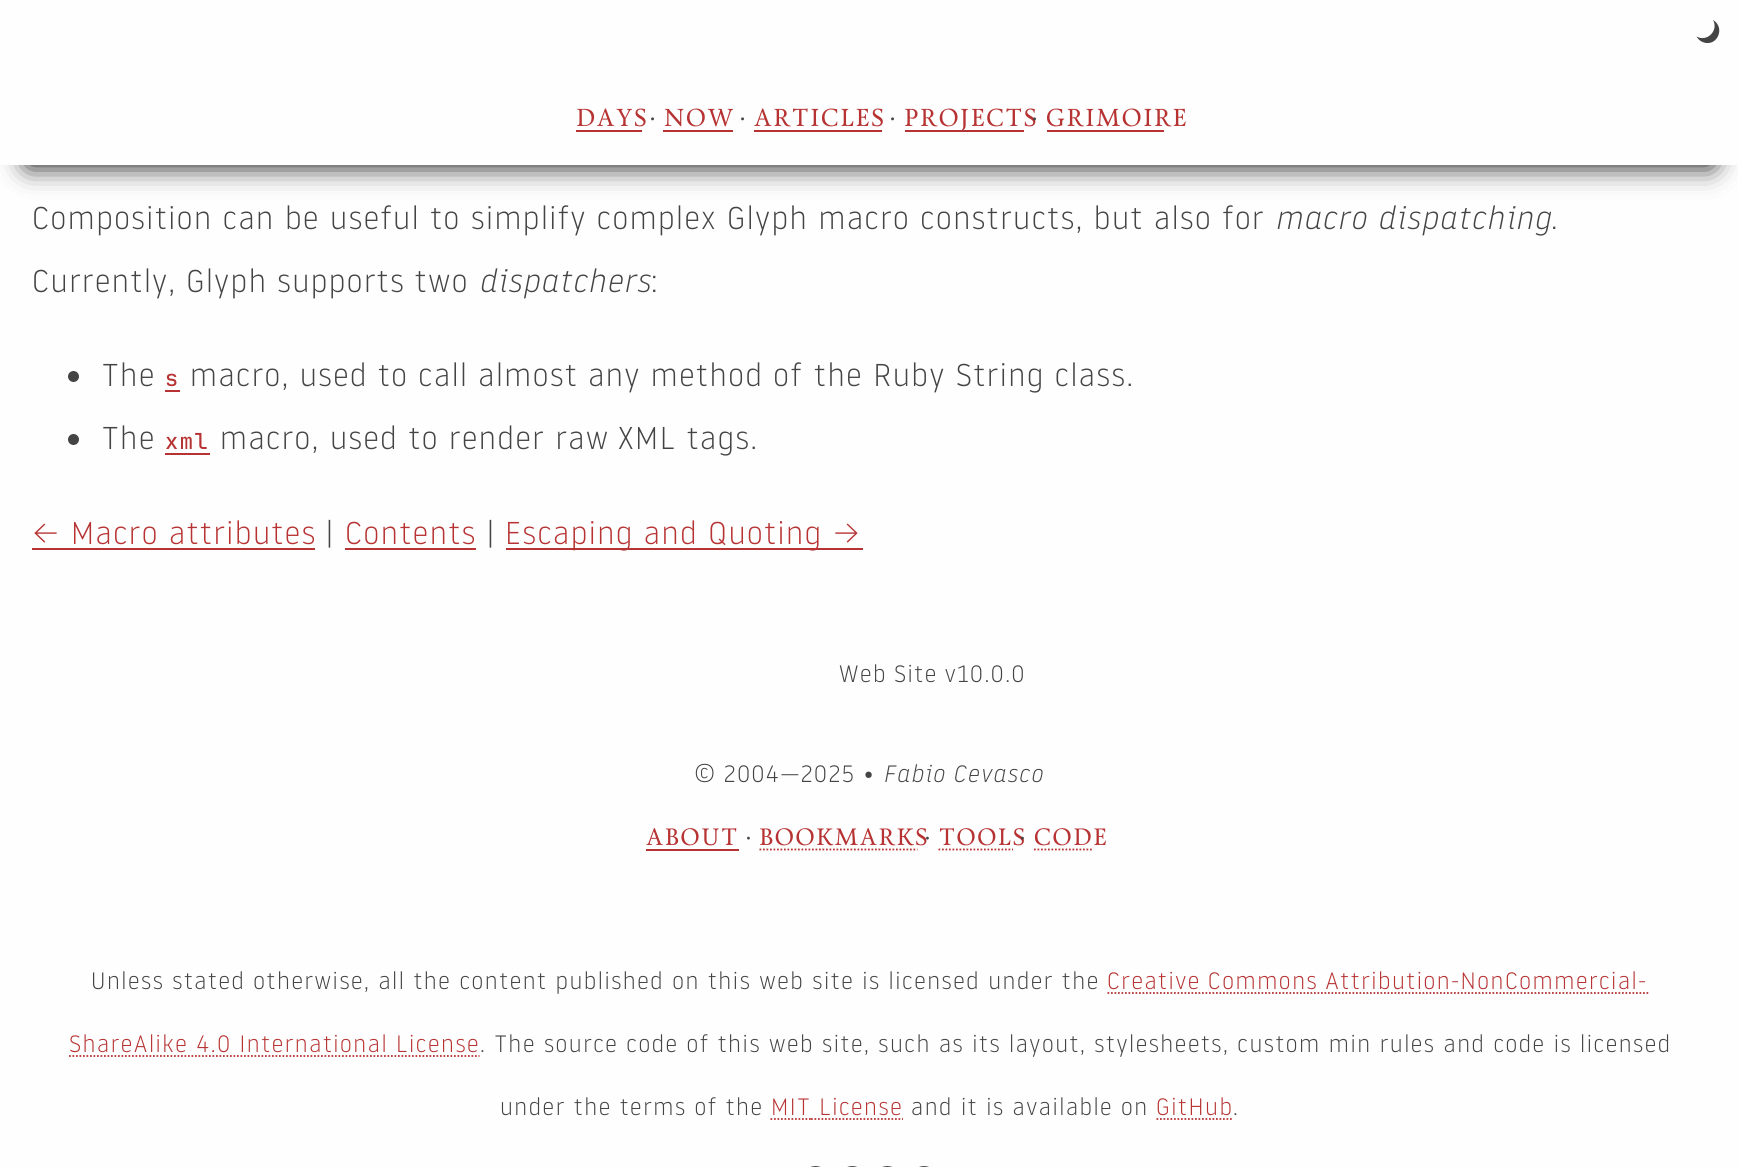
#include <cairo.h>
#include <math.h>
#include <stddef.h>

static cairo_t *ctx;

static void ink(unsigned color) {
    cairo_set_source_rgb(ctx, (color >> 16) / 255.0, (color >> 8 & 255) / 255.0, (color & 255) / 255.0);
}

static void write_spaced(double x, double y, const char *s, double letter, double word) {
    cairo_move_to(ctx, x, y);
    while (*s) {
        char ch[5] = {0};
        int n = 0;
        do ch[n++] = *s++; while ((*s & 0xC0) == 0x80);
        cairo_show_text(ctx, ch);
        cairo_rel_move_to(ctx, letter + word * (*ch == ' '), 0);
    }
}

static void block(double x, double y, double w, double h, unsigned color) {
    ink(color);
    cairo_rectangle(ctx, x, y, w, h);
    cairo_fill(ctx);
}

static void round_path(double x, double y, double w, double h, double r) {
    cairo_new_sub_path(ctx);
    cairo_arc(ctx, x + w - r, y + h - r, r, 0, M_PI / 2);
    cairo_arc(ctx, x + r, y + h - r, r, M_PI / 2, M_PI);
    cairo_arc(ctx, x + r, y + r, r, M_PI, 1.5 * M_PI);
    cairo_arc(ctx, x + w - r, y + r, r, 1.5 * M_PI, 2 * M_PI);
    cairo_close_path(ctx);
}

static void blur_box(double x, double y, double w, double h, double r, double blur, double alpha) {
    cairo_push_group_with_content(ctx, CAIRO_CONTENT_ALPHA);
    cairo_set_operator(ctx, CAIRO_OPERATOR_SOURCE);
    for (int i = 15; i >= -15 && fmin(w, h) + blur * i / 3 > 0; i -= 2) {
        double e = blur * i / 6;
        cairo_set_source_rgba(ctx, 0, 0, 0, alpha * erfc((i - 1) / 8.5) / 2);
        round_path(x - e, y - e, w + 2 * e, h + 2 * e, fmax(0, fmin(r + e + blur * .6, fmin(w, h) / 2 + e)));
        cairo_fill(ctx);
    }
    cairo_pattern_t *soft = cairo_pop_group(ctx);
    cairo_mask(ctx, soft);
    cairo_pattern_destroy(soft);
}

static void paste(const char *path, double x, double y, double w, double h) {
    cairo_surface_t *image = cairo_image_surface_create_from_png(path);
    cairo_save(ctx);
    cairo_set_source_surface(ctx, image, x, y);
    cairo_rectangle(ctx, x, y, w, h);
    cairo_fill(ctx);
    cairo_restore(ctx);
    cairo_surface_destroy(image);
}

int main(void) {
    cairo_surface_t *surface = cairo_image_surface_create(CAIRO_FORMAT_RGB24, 1738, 1167);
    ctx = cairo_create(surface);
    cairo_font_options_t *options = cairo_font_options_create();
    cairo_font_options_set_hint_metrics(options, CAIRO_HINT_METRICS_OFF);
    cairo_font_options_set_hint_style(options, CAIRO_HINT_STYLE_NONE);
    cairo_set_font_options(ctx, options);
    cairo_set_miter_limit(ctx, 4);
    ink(0xfefefe);
    cairo_paint(ctx);
    ink(0x000000);
    blur_box(28, 28, 1684, 137, 0, 14, 1);
    block(0, 0, 1738, 165, 0xfefefe);
    ink(0x444444);
    cairo_new_path(ctx);
    cairo_move_to(ctx, 1713, 20);
    cairo_curve_to(ctx, 1726, 27.5, 1717, 48, 1702.5, 42);
    cairo_curve_to(ctx, 1700, 41, 1698, 39, 1696.5, 36.5);
    cairo_curve_to(ctx, 1707, 42.5, 1719, 30.5, 1713, 20);
    cairo_close_path(ctx);
    cairo_fill(ctx);
    cairo_select_font_face(ctx, "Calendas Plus", CAIRO_FONT_SLANT_NORMAL, CAIRO_FONT_WEIGHT_NORMAL);
    cairo_set_font_size(ctx, 24.5);
    ink(0xb73333);
    write_spaced(576, 126, "DAYS", 1.57, 0);
    block(576, 130, 66, 2, 0xb73333);
    ink(0x444444);
    write_spaced(650, 126, "·", 1.57, 0);
    ink(0xb73333);
    write_spaced(664, 126, "NOW", 1.57, 0);
    block(663, 130, 70, 2, 0xb73333);
    ink(0x444444);
    write_spaced(740, 126, "·", 1.57, 0);
    ink(0xb73333);
    write_spaced(754, 126, "ARTICLES", 1.57, 0);
    block(754, 130, 128, 2, 0xb73333);
    ink(0x444444);
    write_spaced(890, 126, "·", 1.57, 0);
    block(905, 130, 119, 2, 0xb73333);
    write_spaced(904, 126, "PROJECTS", 1.57, 0);
    ink(0x444444);
    write_spaced(1032, 126, "·", 1.57, 0);
    ink(0xb73333);
    write_spaced(1046, 126, "GRIMOIRE", 1.57, 0);
    block(1047, 130, 117, 2, 0xb73333);
    cairo_select_font_face(ctx, "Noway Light", CAIRO_FONT_SLANT_NORMAL, CAIRO_FONT_WEIGHT_NORMAL);
    cairo_set_font_size(ctx, 31.5);
    ink(0x444444);
    write_spaced(32, 229, "Composition can be useful to simplify complex Glyph macro constructs, but also for", 1.57, 0);
    cairo_select_font_face(ctx, "Noway Light", CAIRO_FONT_SLANT_ITALIC, CAIRO_FONT_WEIGHT_NORMAL);
    write_spaced(1275, 229, "macro dispatching", 1.57, 0);
    cairo_select_font_face(ctx, "Noway Light", CAIRO_FONT_SLANT_NORMAL, CAIRO_FONT_WEIGHT_NORMAL);
    write_spaced(1551, 229, ".", 1.57, 0);
    write_spaced(32, 292, "Currently, Glyph supports two", 1.57, -0.5);
    cairo_select_font_face(ctx, "Noway Light", CAIRO_FONT_SLANT_ITALIC, CAIRO_FONT_WEIGHT_NORMAL);
    write_spaced(479, 292, "dispatchers", 1.57, 0);
    cairo_select_font_face(ctx, "Noway Light", CAIRO_FONT_SLANT_NORMAL, CAIRO_FONT_WEIGHT_NORMAL);
    write_spaced(651, 292, ":", 1.57, 0);
    cairo_new_path(ctx);
    cairo_arc(ctx, 73.5, 376.5, 5.5, 0, 2 * M_PI);
    cairo_fill(ctx);
    write_spaced(102, 386, "The", 1.57, 0);
    cairo_select_font_face(ctx, "JetBrains Mono Medium", CAIRO_FONT_SLANT_NORMAL, CAIRO_FONT_WEIGHT_NORMAL);
    cairo_set_font_size(ctx, 22);
    ink(0xb73333);
    write_spaced(165, 386, "s", 1.57, 0);
    block(165, 390, 15, 2, 0xb73333);
    cairo_select_font_face(ctx, "Noway Light", CAIRO_FONT_SLANT_NORMAL, CAIRO_FONT_WEIGHT_NORMAL);
    cairo_set_font_size(ctx, 31.5);
    ink(0x444444);
    write_spaced(190, 386, "macro, used to call almost any method of", 1.57, -0.25);
    write_spaced(814, 386, "the Ruby String class.", 1.57, 0);
    cairo_new_path(ctx);
    cairo_arc(ctx, 73.5, 439.5, 5.5, 0, 2 * M_PI);
    cairo_fill(ctx);
    write_spaced(102, 449, "The", 1.57, 0);
    cairo_select_font_face(ctx, "JetBrains Mono Medium", CAIRO_FONT_SLANT_NORMAL, CAIRO_FONT_WEIGHT_NORMAL);
    cairo_set_font_size(ctx, 22);
    ink(0xb73333);
    write_spaced(165, 449, "xml", 1.57, 0);
    block(165, 453, 45, 2, 0xb73333);
    cairo_select_font_face(ctx, "Noway Light", CAIRO_FONT_SLANT_NORMAL, CAIRO_FONT_WEIGHT_NORMAL);
    cairo_set_font_size(ctx, 31.5);
    ink(0x444444);
    write_spaced(220, 449, "macro, used to render raw", 1.57, 0);
    write_spaced(618, 449, "XML tags.", 1.57, 0);
    ink(0xb73333);
    write_spaced(32, 544, "← Macro attributes", 1.57, 0);
    block(32, 548, 283, 2, 0xb73333);
    ink(0x444444);
    write_spaced(326, 544, "|", 1.57, 0);
    ink(0xb73333);
    write_spaced(345, 544, "Contents", 1.57, 0);
    block(345, 548, 131, 2, 0xb73333);
    ink(0x444444);
    write_spaced(487, 544, "|", 1.57, 0);
    block(506, 548, 357, 2, 0xb73333);
    write_spaced(505, 544, "Escaping and Quoting →", 1.57, 0);
    cairo_set_font_size(ctx, 23.62);
    ink(0x444444);
    write_spaced(839, 682, "Web Site v10.0.0", 1.57, -1);
    write_spaced(695, 782, "© 2004—2025 •", 1.57, 0);
    cairo_select_font_face(ctx, "Noway Light", CAIRO_FONT_SLANT_ITALIC, CAIRO_FONT_WEIGHT_NORMAL);
    write_spaced(883, 782, "Fabio Cevasco", 1.57, -1);
    cairo_select_font_face(ctx, "Calendas Plus", CAIRO_FONT_SLANT_NORMAL, CAIRO_FONT_WEIGHT_NORMAL);
    ink(0xb73333);
    write_spaced(646, 845, "ABOUT", 1.57, 0);
    block(646, 849, 93, 2, 0xb73333);
    ink(0x444444);
    write_spaced(746, 845, "·", 1.57, 0);
    ink(0xb73333);
    write_spaced(759, 845, "BOOKMARKS", 1.57, 0);
    cairo_new_path(ctx);
    cairo_move_to(ctx, 759.5, 849.5);
    cairo_line_to(ctx, 917.5, 849.5);
    cairo_set_line_width(ctx, 1.8);
    cairo_set_dash(ctx, (double[]){1.75, 1.75}, 2, 0);
    cairo_stroke(ctx);
    ink(0x444444);
    write_spaced(925, 845, "·", 1.57, 0);
    ink(0xb73333);
    write_spaced(939, 845, "TOOLS", 1.57, 0);
    cairo_new_path(ctx);
    cairo_move_to(ctx, 938.5, 849.5);
    cairo_line_to(ctx, 1013, 849.5);
    cairo_stroke(ctx);
    ink(0x444444);
    write_spaced(1020, 845, "·", 1.57, 0);
    ink(0xb73333);
    write_spaced(1034, 845, "CODE", 1.57, 0);
    cairo_new_path(ctx);
    cairo_move_to(ctx, 1034, 849.5);
    cairo_line_to(ctx, 1093, 849.5);
    cairo_stroke(ctx);
    cairo_select_font_face(ctx, "Noway Light", CAIRO_FONT_SLANT_NORMAL, CAIRO_FONT_WEIGHT_NORMAL);
    ink(0x444444);
    write_spaced(91, 989, "Unless stated otherwise, all the content published on this web site is licensed under the", 1.57, 0);
    ink(0xb73333);
    write_spaced(1107, 989, "Creative Commons Attribution-NonCommercial-", 1.57, -1);
    cairo_new_path(ctx);
    cairo_move_to(ctx, 1107.5, 993);
    cairo_line_to(ctx, 1648.5, 993);
    cairo_stroke(ctx);
    write_spaced(69, 1052, "ShareAlike 4.0 International License", 1.57, 0);
    cairo_new_path(ctx);
    cairo_move_to(ctx, 69, 1056);
    cairo_line_to(ctx, 479.5, 1056);
    cairo_stroke(ctx);
    ink(0x444444);
    write_spaced(480, 1052, ". The source code of this web site, such as its layout, stylesheets, custom min rules and code is licensed", 1.57, 0);
    write_spaced(500, 1115, "under the terms of the", 1.57, 0);
    ink(0xb73333);
    write_spaced(771, 1115, "MIT License", 1.57, 0);
    cairo_new_path(ctx);
    cairo_move_to(ctx, 770.5, 1119);
    cairo_line_to(ctx, 811, 1119);
    cairo_stroke(ctx);
    cairo_new_path(ctx);
    cairo_move_to(ctx, 811, 1119);
    cairo_line_to(ctx, 903, 1119);
    cairo_stroke(ctx);
    ink(0x444444);
    write_spaced(911, 1115, "and it is available", 1.57, 0);
    write_spaced(1121, 1115, "on", 1.57, 0);
    ink(0xb73333);
    write_spaced(1156, 1115, "GitHub", 1.57, 0);
    cairo_new_path(ctx);
    cairo_move_to(ctx, 1156.5, 1119);
    cairo_line_to(ctx, 1233.5, 1119);
    cairo_stroke(ctx);
    ink(0x444444);
    write_spaced(1233, 1115, ".", 1.57, 0);
    paste("pic1.png", 810, 1166, 11, 1);
    paste("pic2.png", 847, 1166, 11, 1);
    paste("pic2.png", 882, 1166, 11, 1);
    paste("pic3.png", 919, 1166, 10, 1);
    cairo_surface_write_to_png(surface, "screenshot.png");
    cairo_font_options_destroy(options);
    cairo_destroy(ctx);
    cairo_surface_destroy(surface);
    return 0;
}
